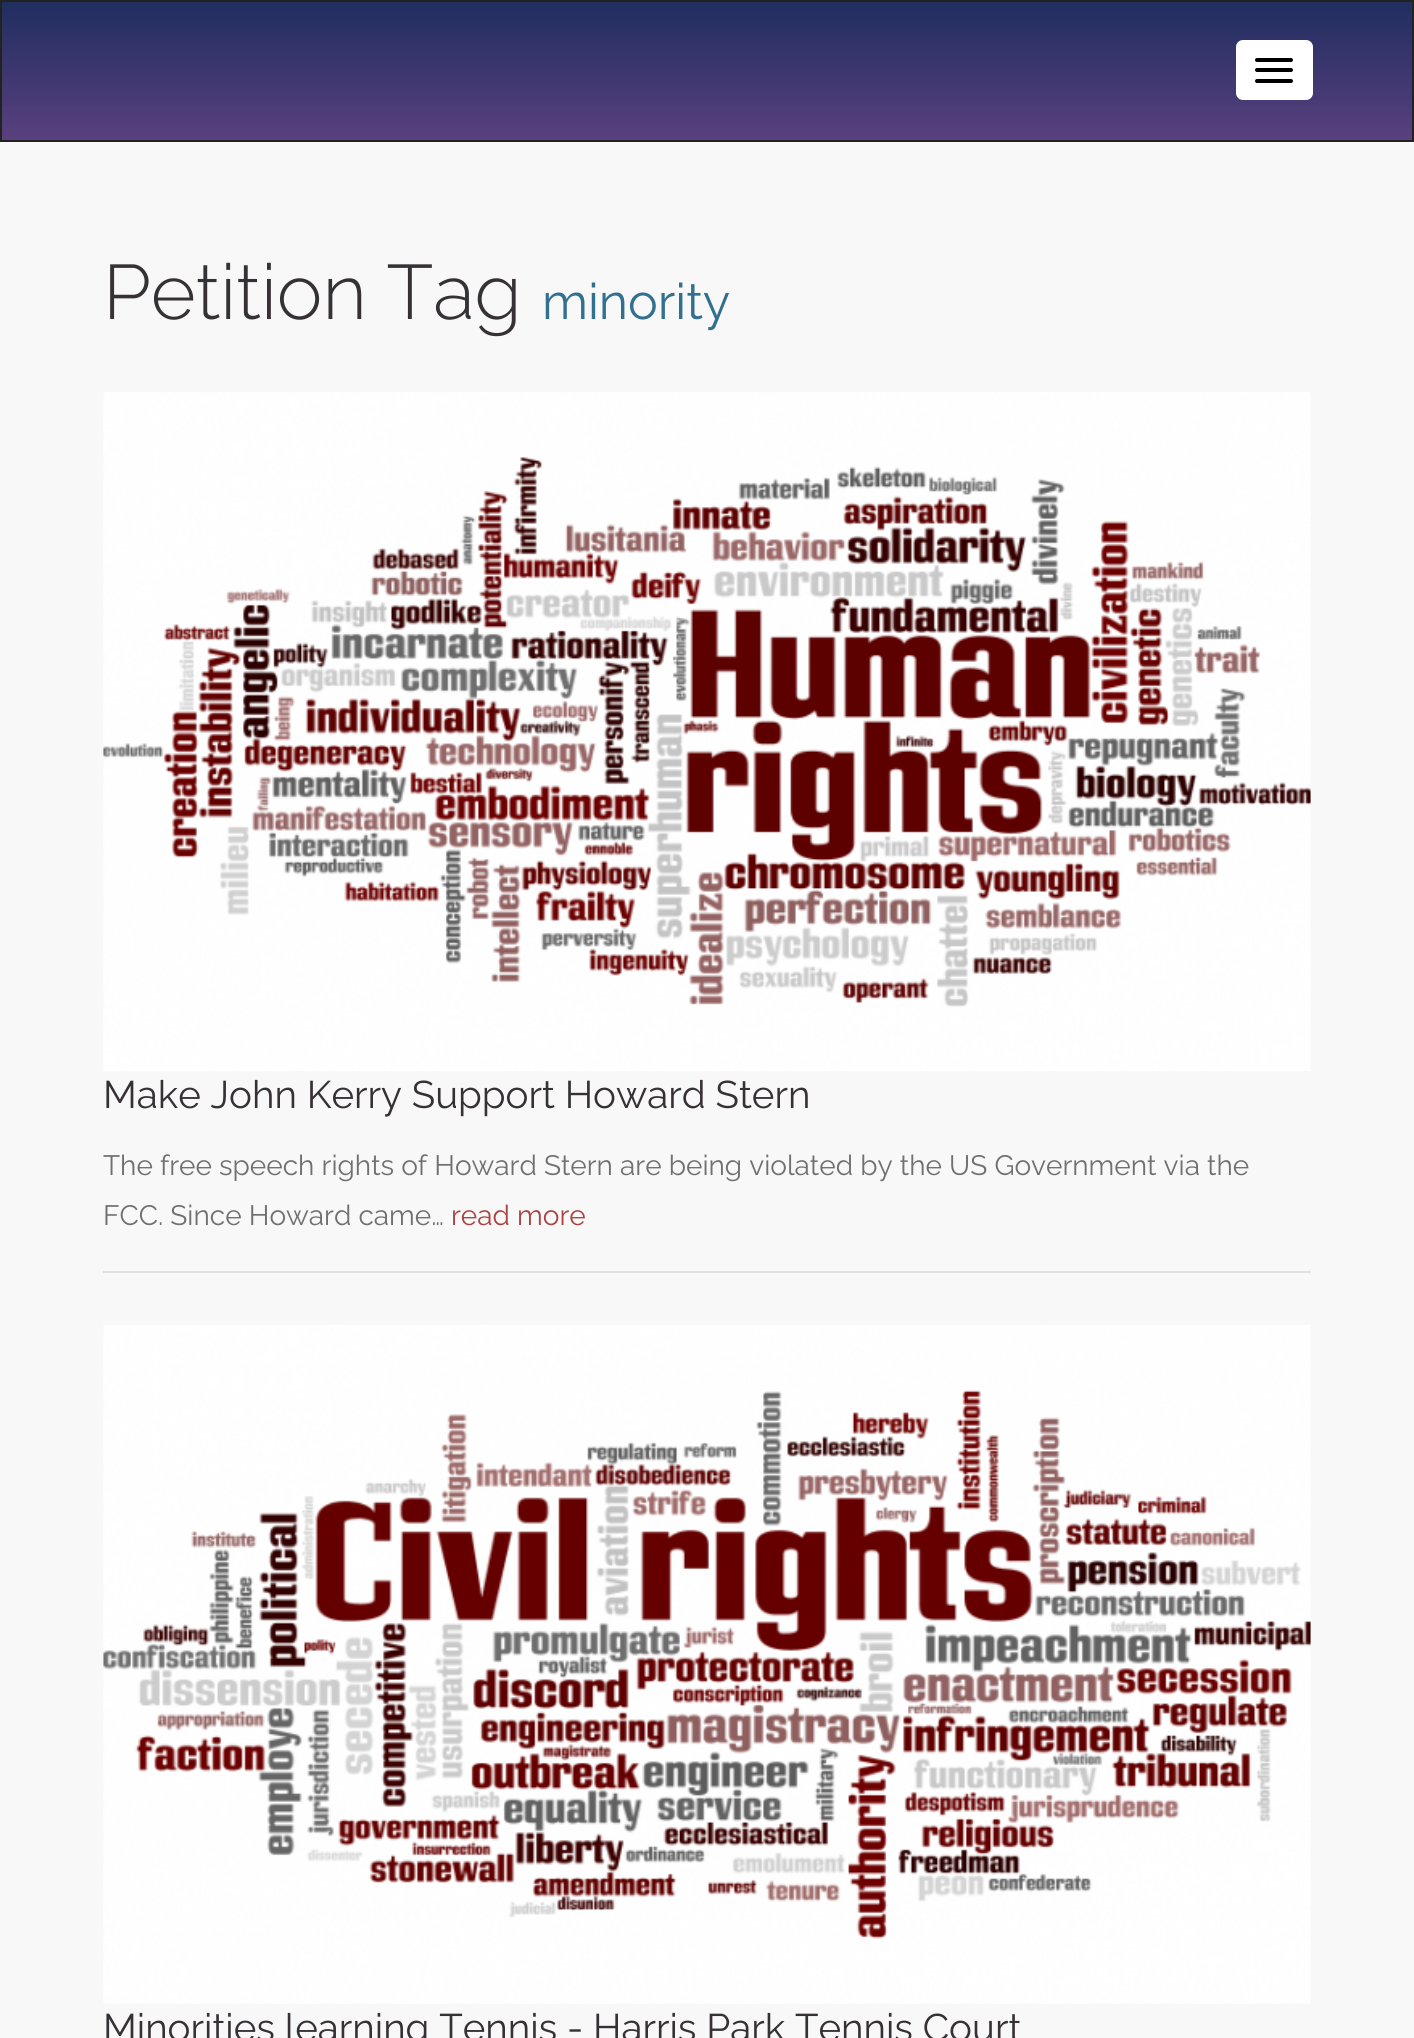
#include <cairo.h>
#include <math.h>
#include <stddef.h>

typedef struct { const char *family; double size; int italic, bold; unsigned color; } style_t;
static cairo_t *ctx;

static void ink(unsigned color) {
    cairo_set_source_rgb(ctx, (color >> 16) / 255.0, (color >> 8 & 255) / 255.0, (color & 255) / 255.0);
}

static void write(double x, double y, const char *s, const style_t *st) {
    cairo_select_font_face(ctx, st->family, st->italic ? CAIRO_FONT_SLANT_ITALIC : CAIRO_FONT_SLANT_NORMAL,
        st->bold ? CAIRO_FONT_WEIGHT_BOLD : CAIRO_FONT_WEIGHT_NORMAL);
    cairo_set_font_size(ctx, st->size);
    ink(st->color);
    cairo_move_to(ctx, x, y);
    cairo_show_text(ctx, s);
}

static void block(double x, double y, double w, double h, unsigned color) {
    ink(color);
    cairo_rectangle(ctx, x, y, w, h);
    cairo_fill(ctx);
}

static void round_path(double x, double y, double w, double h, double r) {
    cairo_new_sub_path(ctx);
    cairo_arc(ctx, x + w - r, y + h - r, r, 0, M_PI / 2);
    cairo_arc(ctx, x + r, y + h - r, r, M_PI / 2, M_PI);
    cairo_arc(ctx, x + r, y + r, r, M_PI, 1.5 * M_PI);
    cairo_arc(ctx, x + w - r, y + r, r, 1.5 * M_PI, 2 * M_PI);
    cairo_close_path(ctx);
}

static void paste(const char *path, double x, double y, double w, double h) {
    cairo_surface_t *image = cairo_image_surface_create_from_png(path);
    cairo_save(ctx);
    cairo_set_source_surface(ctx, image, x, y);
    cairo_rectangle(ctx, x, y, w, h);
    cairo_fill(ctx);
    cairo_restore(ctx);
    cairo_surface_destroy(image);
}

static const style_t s1 = {"Raleway Light", 77, 0, 0, 0x363135};
static const style_t s2 = {"Raleway", 50, 0, 0, 0x31708f};
static const style_t s3 = {"Raleway", 38.5, 0, 0, 0x363135};
static const style_t s4 = {"Raleway", 28, 0, 0, 0x707070};
static const style_t s5 = {"Raleway", 28, 0, 0, 0xa94442};

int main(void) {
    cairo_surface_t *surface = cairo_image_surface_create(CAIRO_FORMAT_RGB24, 1414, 2038);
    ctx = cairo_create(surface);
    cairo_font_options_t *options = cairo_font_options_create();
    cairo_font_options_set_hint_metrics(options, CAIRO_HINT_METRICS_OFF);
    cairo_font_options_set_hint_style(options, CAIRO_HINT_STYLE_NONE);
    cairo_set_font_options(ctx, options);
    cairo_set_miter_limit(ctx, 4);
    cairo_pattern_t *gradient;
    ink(0xf8f8f8);
    cairo_paint(ctx);
    gradient = cairo_pattern_create_linear(707, 1.7, 707, 140);
    cairo_pattern_add_color_stop_rgba(gradient, 0, 0.125, 0.18, 0.373, 1);
    cairo_pattern_add_color_stop_rgba(gradient, 1, 0.349, 0.251, 0.494, 1);
    cairo_set_source(ctx, gradient);
    cairo_pattern_destroy(gradient);
    cairo_rectangle(ctx, 2, 2, 1410, 138);
    cairo_fill(ctx);
    cairo_rectangle(ctx, 1, 1, 1412, 140);
    ink(0x222222);
    cairo_stroke(ctx);
    ink(0xffffff);
    round_path(1237, 41, 75, 58, 6);
    cairo_fill_preserve(ctx);
    cairo_stroke(ctx);
    ink(0x000000);
    round_path(1255, 58, 38, 4, 2);
    cairo_fill(ctx);
    round_path(1255, 68, 38, 4, 2);
    cairo_fill(ctx);
    round_path(1255, 79, 38, 4, 2);
    cairo_fill(ctx);
    write(103, 319, "Petition Tag", &s1);
    write(542, 319, "minority", &s2);
    block(103, 1271, 1208, 2, 0xe0e0e0);
    paste("pic1.png", 103, 392, 1208, 679);
    write(103, 1108, "Make John Kerry Support Howard Stern", &s3);
    write(103, 1175, "The free speech rights of Howard Stern are being violated by the US Government via the", &s4);
    write(103, 1225, "FCC. Since Howard came…", &s4);
    write(451, 1225, "read more", &s5);
    paste("pic2.png", 103, 1325, 1208, 679);
    write(103, 2041, "Minorities learning Tennis - Harris Park Tennis Court", &s3);
    cairo_surface_write_to_png(surface, "screenshot.png");
    cairo_font_options_destroy(options);
    cairo_destroy(ctx);
    cairo_surface_destroy(surface);
    return 0;
}
